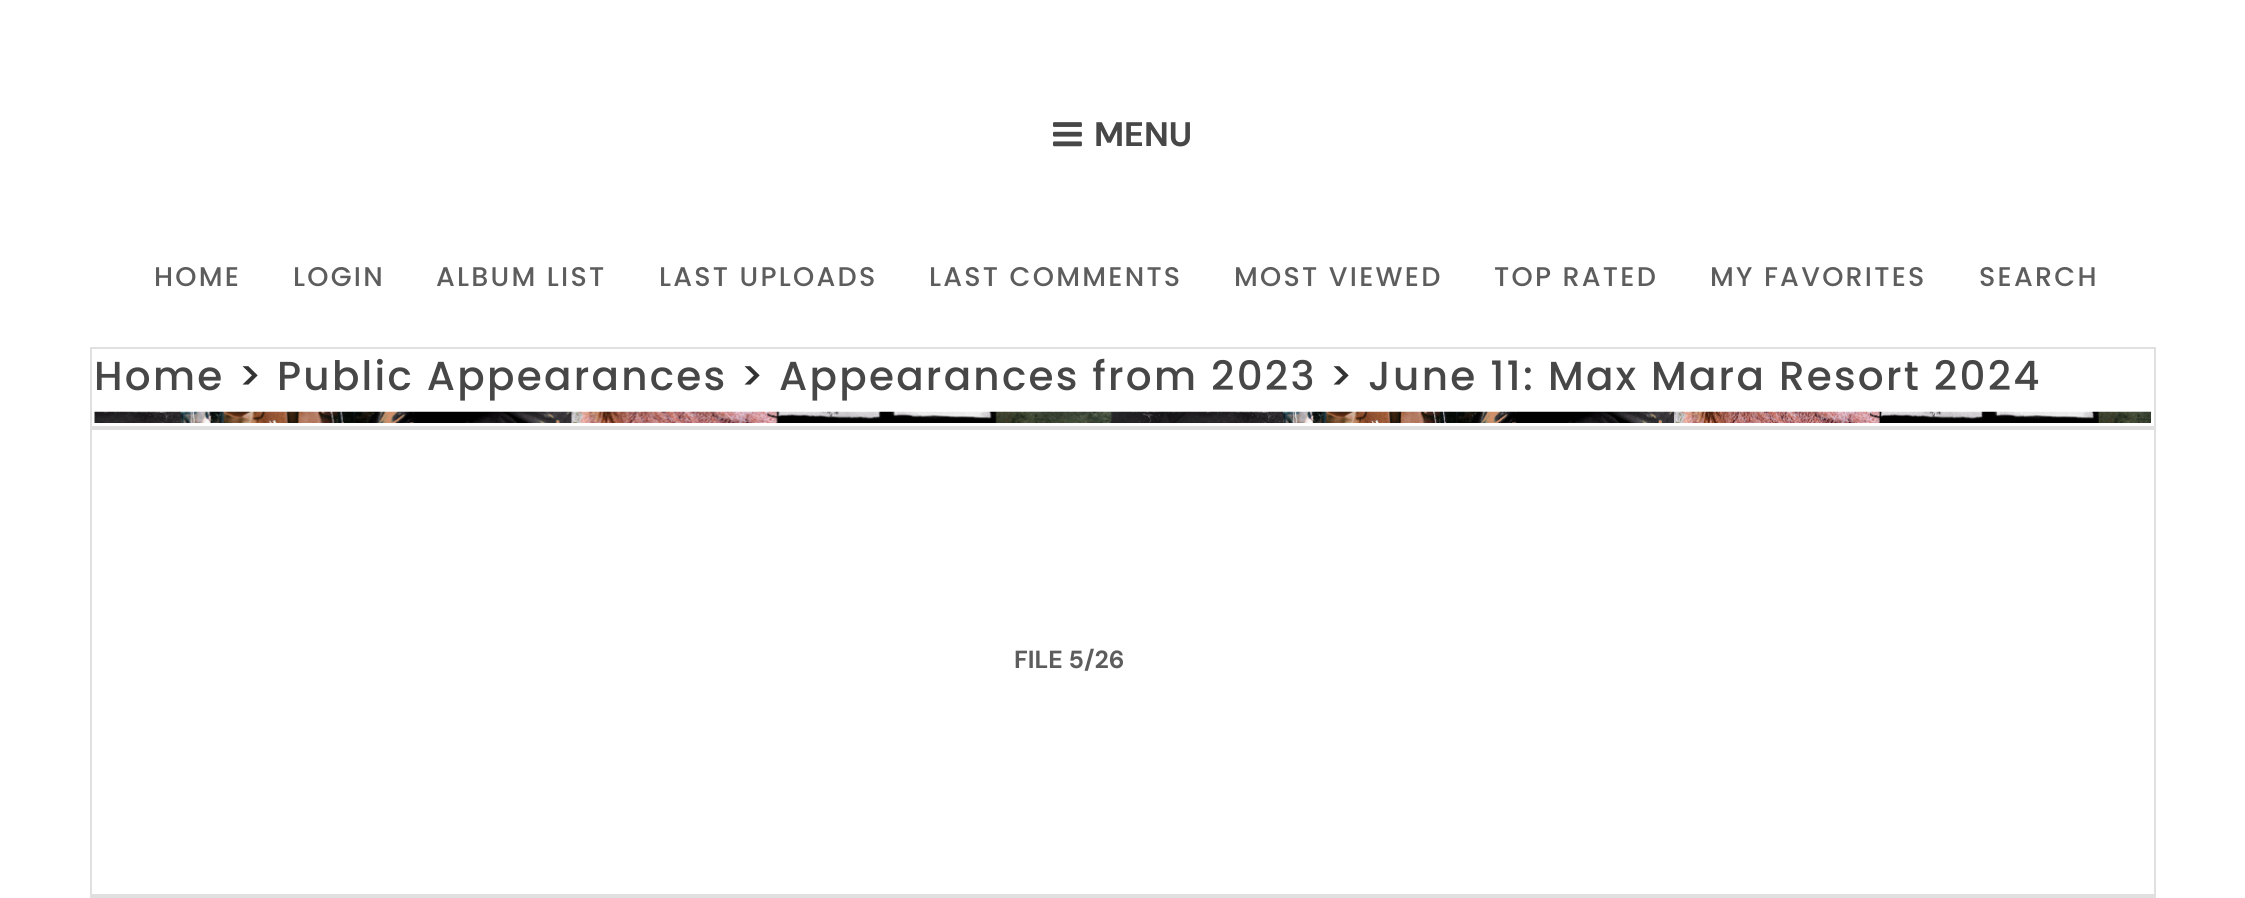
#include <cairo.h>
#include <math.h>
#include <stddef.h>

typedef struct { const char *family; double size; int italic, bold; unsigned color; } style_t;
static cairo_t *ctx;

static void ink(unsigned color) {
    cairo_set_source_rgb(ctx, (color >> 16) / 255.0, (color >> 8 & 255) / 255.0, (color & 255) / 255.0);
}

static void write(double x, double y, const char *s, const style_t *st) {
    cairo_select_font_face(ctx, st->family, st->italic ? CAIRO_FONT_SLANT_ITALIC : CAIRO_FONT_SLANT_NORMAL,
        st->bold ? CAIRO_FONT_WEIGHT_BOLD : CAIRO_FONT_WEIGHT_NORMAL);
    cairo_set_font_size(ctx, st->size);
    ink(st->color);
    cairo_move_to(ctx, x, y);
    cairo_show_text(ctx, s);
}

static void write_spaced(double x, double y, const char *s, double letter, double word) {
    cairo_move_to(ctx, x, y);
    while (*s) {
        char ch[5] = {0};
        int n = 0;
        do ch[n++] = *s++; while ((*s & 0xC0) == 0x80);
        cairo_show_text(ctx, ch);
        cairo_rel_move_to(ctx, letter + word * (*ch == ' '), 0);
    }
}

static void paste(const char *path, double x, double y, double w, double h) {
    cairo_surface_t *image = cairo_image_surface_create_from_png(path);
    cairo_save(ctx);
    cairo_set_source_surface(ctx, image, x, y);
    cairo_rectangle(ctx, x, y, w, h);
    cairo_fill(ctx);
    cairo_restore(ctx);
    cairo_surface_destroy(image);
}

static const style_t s1 = {"DM Sans", 34, 0, 1, 0x474747};
static const style_t s2 = {"DM Sans", 24.75, 0, 1, 0x5d5d5d};

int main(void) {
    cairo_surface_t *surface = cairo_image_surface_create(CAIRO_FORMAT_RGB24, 2245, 898);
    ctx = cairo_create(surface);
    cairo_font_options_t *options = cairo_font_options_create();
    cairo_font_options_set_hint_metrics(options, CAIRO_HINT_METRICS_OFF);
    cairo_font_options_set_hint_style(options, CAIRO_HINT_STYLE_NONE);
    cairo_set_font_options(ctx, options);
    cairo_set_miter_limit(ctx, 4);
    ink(0xffffff);
    cairo_paint(ctx);
    paste("pic1.png", 1053, 122, 29, 25);
    write(1094, 146, "MENU", &s1);
    cairo_select_font_face(ctx, "Poppins Medium", CAIRO_FONT_SLANT_NORMAL, CAIRO_FONT_WEIGHT_NORMAL);
    cairo_set_font_size(ctx, 27);
    ink(0x5d5d5d);
    write_spaced(154, 286, "HOME", 2.25, 0);
    write_spaced(293, 286, "LOGIN", 2.25, 0);
    write_spaced(436, 286, "ALBUM LIST", 2.25, 0);
    write_spaced(659, 286, "LAST UPLOADS", 2.25, 0);
    write_spaced(929, 286, "LAST COMMENTS", 2.25, 0);
    write_spaced(1234, 286, "MOST VIEWED", 2.25, 0);
    write_spaced(1494, 286, "TOP RATED", 2.25, 0);
    write_spaced(1710, 286, "MY FAVORITES", 2.25, 0);
    write_spaced(1979, 286, "SEARCH", 2.25, 0);
    cairo_rectangle(ctx, 91, 348, 2064, 79);
    ink(0xe0e0e0);
    cairo_stroke(ctx);
    paste("pic2.png", 94, 411, 2057, 12);
    cairo_set_font_size(ctx, 40.5);
    ink(0x474747);
    write_spaced(94, 390, "Home", 2.25, 0);
    ink(0x333333);
    write_spaced(238, 390, ">", 2.25, 0);
    ink(0x474747);
    write_spaced(277, 390, "Public Appearances", 2.25, 0);
    ink(0x333333);
    write_spaced(740, 390, ">", 2.25, 0);
    ink(0x474747);
    write_spaced(779, 390, "Appearances from 2023", 2.25, 0);
    ink(0x333333);
    write_spaced(1329, 390, ">", 2.25, 0);
    ink(0x474747);
    write_spaced(1368, 390, "June 11: Max Mara Resort 2024", 2.25, 0);
    cairo_rectangle(ctx, 91, 429, 2064, 466);
    ink(0xe0e0e0);
    cairo_stroke(ctx);
    write(1014, 668, "FILE 5/26", &s2);
    cairo_rectangle(ctx, 91, 897, 2064, 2);
    ink(0xe0e0e0);
    cairo_stroke(ctx);
    cairo_surface_write_to_png(surface, "screenshot.png");
    cairo_font_options_destroy(options);
    cairo_destroy(ctx);
    cairo_surface_destroy(surface);
    return 0;
}
